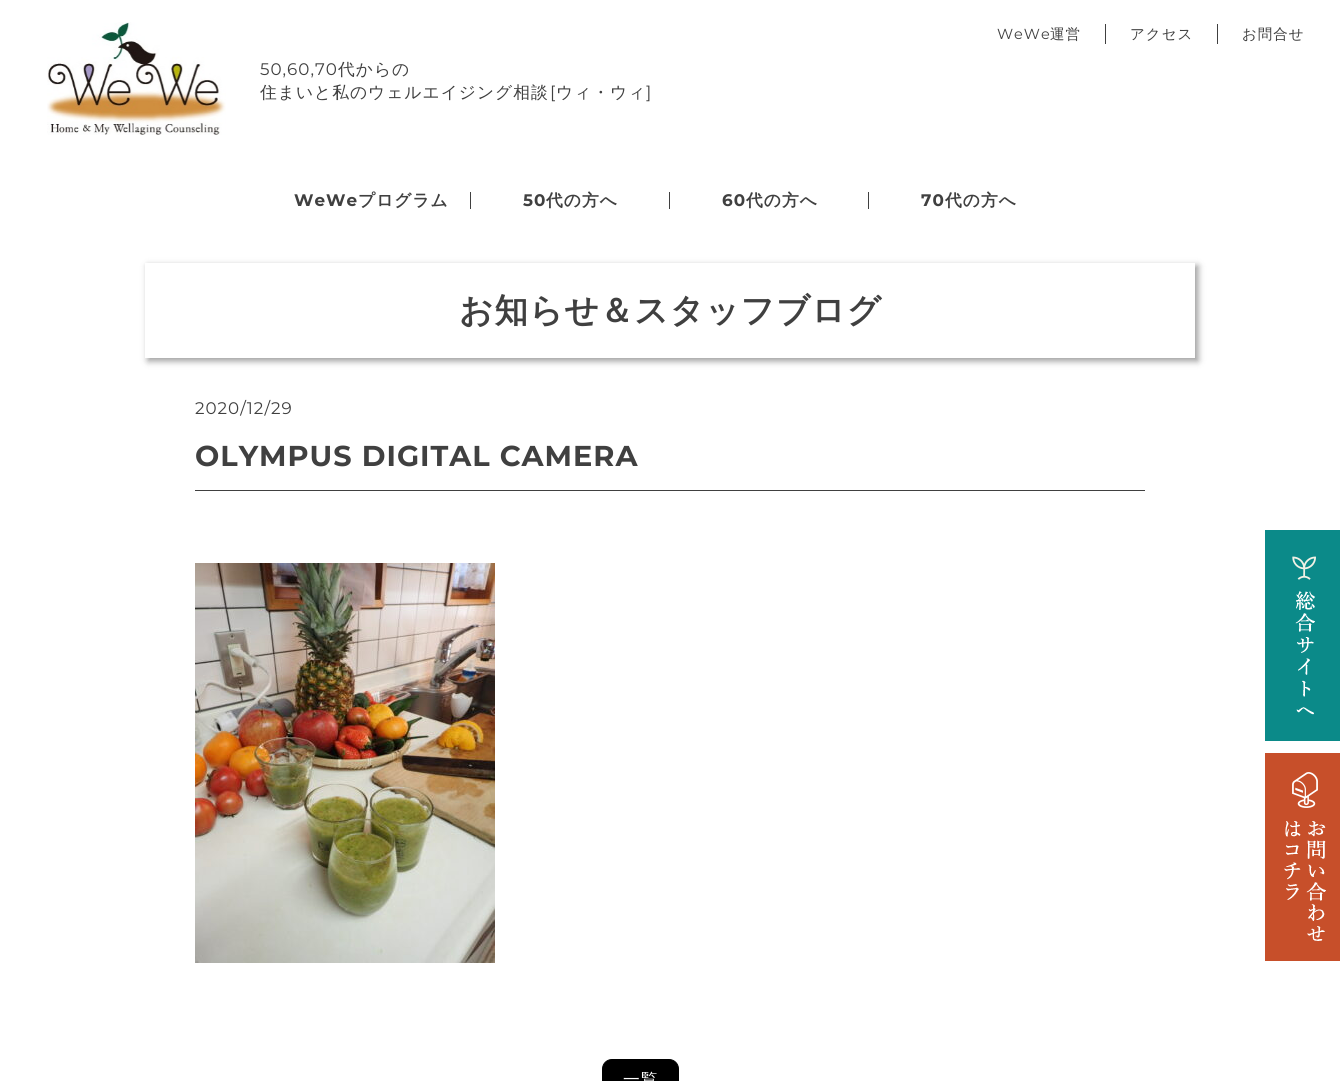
#include <cairo.h>
#include <math.h>
#include <stddef.h>

static cairo_t *ctx;

static void ink(unsigned color) {
    cairo_set_source_rgb(ctx, (color >> 16) / 255.0, (color >> 8 & 255) / 255.0, (color & 255) / 255.0);
}

static void write_spaced(double x, double y, const char *s, double letter, double word) {
    cairo_move_to(ctx, x, y);
    while (*s) {
        char ch[5] = {0};
        int n = 0;
        do ch[n++] = *s++; while ((*s & 0xC0) == 0x80);
        cairo_show_text(ctx, ch);
        cairo_rel_move_to(ctx, letter + word * (*ch == ' '), 0);
    }
}

static void block(double x, double y, double w, double h, unsigned color) {
    ink(color);
    cairo_rectangle(ctx, x, y, w, h);
    cairo_fill(ctx);
}

static void round_path(double x, double y, double w, double h, double r) {
    cairo_new_sub_path(ctx);
    cairo_arc(ctx, x + w - r, y + h - r, r, 0, M_PI / 2);
    cairo_arc(ctx, x + r, y + h - r, r, M_PI / 2, M_PI);
    cairo_arc(ctx, x + r, y + r, r, M_PI, 1.5 * M_PI);
    cairo_arc(ctx, x + w - r, y + r, r, 1.5 * M_PI, 2 * M_PI);
    cairo_close_path(ctx);
}

static void blur_box(double x, double y, double w, double h, double r, double blur, double alpha) {
    cairo_push_group_with_content(ctx, CAIRO_CONTENT_ALPHA);
    cairo_set_operator(ctx, CAIRO_OPERATOR_SOURCE);
    for (int i = 15; i >= -15 && fmin(w, h) + blur * i / 3 > 0; i -= 2) {
        double e = blur * i / 6;
        cairo_set_source_rgba(ctx, 0, 0, 0, alpha * erfc((i - 1) / 8.5) / 2);
        round_path(x - e, y - e, w + 2 * e, h + 2 * e, fmax(0, fmin(r + e + blur * .6, fmin(w, h) / 2 + e)));
        cairo_fill(ctx);
    }
    cairo_pattern_t *soft = cairo_pop_group(ctx);
    cairo_mask(ctx, soft);
    cairo_pattern_destroy(soft);
}

static void paste(const char *path, double x, double y, double w, double h) {
    cairo_surface_t *image = cairo_image_surface_create_from_png(path);
    cairo_save(ctx);
    cairo_set_source_surface(ctx, image, x, y);
    cairo_rectangle(ctx, x, y, w, h);
    cairo_fill(ctx);
    cairo_restore(ctx);
    cairo_surface_destroy(image);
}

int main(void) {
    cairo_surface_t *surface = cairo_image_surface_create(CAIRO_FORMAT_RGB24, 1340, 1081);
    ctx = cairo_create(surface);
    cairo_font_options_t *options = cairo_font_options_create();
    cairo_font_options_set_hint_metrics(options, CAIRO_HINT_METRICS_OFF);
    cairo_font_options_set_hint_style(options, CAIRO_HINT_STYLE_NONE);
    cairo_set_font_options(ctx, options);
    cairo_set_miter_limit(ctx, 4);
    ink(0xffffff);
    cairo_paint(ctx);
    cairo_select_font_face(ctx, "Montserrat", CAIRO_FONT_SLANT_NORMAL, CAIRO_FONT_WEIGHT_NORMAL);
    cairo_set_font_size(ctx, 14.5);
    ink(0x404040);
    write_spaced(997, 39, "WeWe", 1, 0);
    cairo_select_font_face(ctx, "WenQuanYi Zen Hei Medium", CAIRO_FONT_SLANT_NORMAL, CAIRO_FONT_WEIGHT_NORMAL);
    write_spaced(1050, 39, "運営", 1, 0);
    block(1105, 24, 1, 20, 0x404040);
    write_spaced(1130, 39, "アクセス", 1, 0);
    block(1217, 24, 1, 20, 0x404040);
    write_spaced(1242, 39, "お問合せ", 1, 0);
    cairo_select_font_face(ctx, "Montserrat", CAIRO_FONT_SLANT_NORMAL, CAIRO_FONT_WEIGHT_BOLD);
    cairo_set_font_size(ctx, 16.75);
    write_spaced(294, 206, "WeWe", 1, 0);
    cairo_select_font_face(ctx, "WenQuanYi Zen Hei", CAIRO_FONT_SLANT_NORMAL, CAIRO_FONT_WEIGHT_BOLD);
    write_spaced(358, 206, "プログラム", 1, 0);
    block(470, 192, 1, 17, 0x404040);
    cairo_select_font_face(ctx, "Montserrat", CAIRO_FONT_SLANT_NORMAL, CAIRO_FONT_WEIGHT_BOLD);
    write_spaced(523, 206, "50", 1, 0);
    cairo_select_font_face(ctx, "WenQuanYi Zen Hei", CAIRO_FONT_SLANT_NORMAL, CAIRO_FONT_WEIGHT_BOLD);
    write_spaced(546, 206, "代の方へ", 1, 0);
    block(669, 192, 1, 17, 0x404040);
    cairo_select_font_face(ctx, "Montserrat", CAIRO_FONT_SLANT_NORMAL, CAIRO_FONT_WEIGHT_BOLD);
    write_spaced(722, 206, "60", 1, 0);
    cairo_select_font_face(ctx, "WenQuanYi Zen Hei", CAIRO_FONT_SLANT_NORMAL, CAIRO_FONT_WEIGHT_BOLD);
    write_spaced(746, 206, "代の方へ", 1, 0);
    block(868, 192, 1, 17, 0x404040);
    cairo_select_font_face(ctx, "Montserrat", CAIRO_FONT_SLANT_NORMAL, CAIRO_FONT_WEIGHT_BOLD);
    write_spaced(921, 206, "70", 1, 0);
    cairo_select_font_face(ctx, "WenQuanYi Zen Hei", CAIRO_FONT_SLANT_NORMAL, CAIRO_FONT_WEIGHT_BOLD);
    write_spaced(945, 206, "代の方へ", 1, 0);
    paste("pic1.png", 47, 22, 179, 113);
    cairo_select_font_face(ctx, "Montserrat", CAIRO_FONT_SLANT_NORMAL, CAIRO_FONT_WEIGHT_NORMAL);
    write_spaced(260, 75, "50,60,70", 1, 0);
    cairo_select_font_face(ctx, "WenQuanYi Zen Hei Medium", CAIRO_FONT_SLANT_NORMAL, CAIRO_FONT_WEIGHT_NORMAL);
    write_spaced(338, 75, "代からの", 1, 0);
    write_spaced(260, 98, "住まいと私のウェルエイジング相談", 1, 0);
    cairo_select_font_face(ctx, "Montserrat", CAIRO_FONT_SLANT_NORMAL, CAIRO_FONT_WEIGHT_NORMAL);
    write_spaced(550, 98, "[", 1, 0);
    cairo_select_font_face(ctx, "WenQuanYi Zen Hei Medium", CAIRO_FONT_SLANT_NORMAL, CAIRO_FONT_WEIGHT_NORMAL);
    write_spaced(556, 98, "ウィ・ウィ", 1, 0);
    cairo_select_font_face(ctx, "Montserrat", CAIRO_FONT_SLANT_NORMAL, CAIRO_FONT_WEIGHT_NORMAL);
    write_spaced(646, 98, "]", 1, 0);
    cairo_save(ctx);
    cairo_set_fill_rule(ctx, CAIRO_FILL_RULE_EVEN_ODD);
    cairo_new_path(ctx);
    cairo_move_to(ctx, 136, 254);
    cairo_line_to(ctx, 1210, 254);
    cairo_line_to(ctx, 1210, 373);
    cairo_line_to(ctx, 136, 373);
    cairo_close_path(ctx);
    cairo_move_to(ctx, 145, 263);
    cairo_line_to(ctx, 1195, 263);
    cairo_line_to(ctx, 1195, 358);
    cairo_line_to(ctx, 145, 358);
    cairo_close_path(ctx);
    cairo_clip(ctx);
    ink(0x000000);
    blur_box(148, 266, 1050, 95, 0, 3.5, 0.4);
    cairo_restore(ctx);
    cairo_select_font_face(ctx, "WenQuanYi Zen Hei", CAIRO_FONT_SLANT_NORMAL, CAIRO_FONT_WEIGHT_BOLD);
    cairo_set_font_size(ctx, 33.6);
    write_spaced(459, 322, "お知らせ＆スタッフブログ", 1, 0);
    cairo_select_font_face(ctx, "Montserrat", CAIRO_FONT_SLANT_NORMAL, CAIRO_FONT_WEIGHT_NORMAL);
    cairo_set_font_size(ctx, 16.75);
    write_spaced(195, 414, "2020/12/29", 1, 0);
    block(195, 490, 950, 1, 0x404040);
    cairo_select_font_face(ctx, "Montserrat", CAIRO_FONT_SLANT_NORMAL, CAIRO_FONT_WEIGHT_BOLD);
    cairo_set_font_size(ctx, 28.75);
    write_spaced(195, 466, "OLYMPUS DIGITAL CAMERA", 1, 0);
    paste("pic2.png", 195, 563, 300, 400);
    ink(0x000000);
    round_path(602.5, 1059.5, 76, 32, 9.5);
    cairo_fill_preserve(ctx);
    cairo_set_line_width(ctx, 1);
    cairo_stroke(ctx);
    cairo_select_font_face(ctx, "WenQuanYi Zen Hei Medium", CAIRO_FONT_SLANT_NORMAL, CAIRO_FONT_WEIGHT_NORMAL);
    cairo_set_font_size(ctx, 16.75);
    ink(0xffffff);
    write_spaced(623, 1085, "一覧", 1, 0);
    block(1265, 530, 75, 211, 0x0b8a89);
    paste("pic3.png", 1292, 556, 24, 159);
    block(1265, 753, 75, 208, 0xc74f2a);
    paste("pic4.png", 1284, 772, 42, 169);
    cairo_surface_write_to_png(surface, "screenshot.png");
    cairo_font_options_destroy(options);
    cairo_destroy(ctx);
    cairo_surface_destroy(surface);
    return 0;
}
